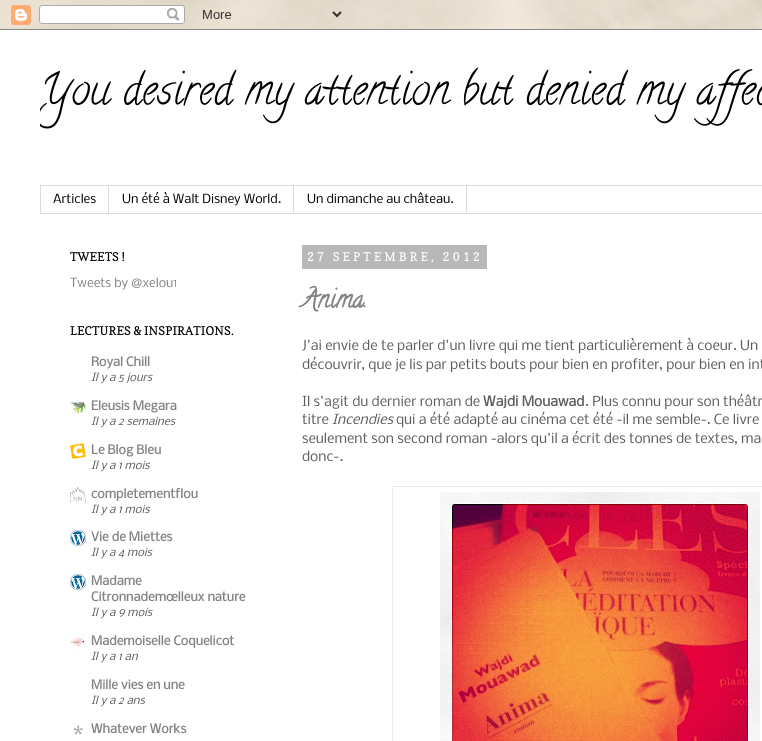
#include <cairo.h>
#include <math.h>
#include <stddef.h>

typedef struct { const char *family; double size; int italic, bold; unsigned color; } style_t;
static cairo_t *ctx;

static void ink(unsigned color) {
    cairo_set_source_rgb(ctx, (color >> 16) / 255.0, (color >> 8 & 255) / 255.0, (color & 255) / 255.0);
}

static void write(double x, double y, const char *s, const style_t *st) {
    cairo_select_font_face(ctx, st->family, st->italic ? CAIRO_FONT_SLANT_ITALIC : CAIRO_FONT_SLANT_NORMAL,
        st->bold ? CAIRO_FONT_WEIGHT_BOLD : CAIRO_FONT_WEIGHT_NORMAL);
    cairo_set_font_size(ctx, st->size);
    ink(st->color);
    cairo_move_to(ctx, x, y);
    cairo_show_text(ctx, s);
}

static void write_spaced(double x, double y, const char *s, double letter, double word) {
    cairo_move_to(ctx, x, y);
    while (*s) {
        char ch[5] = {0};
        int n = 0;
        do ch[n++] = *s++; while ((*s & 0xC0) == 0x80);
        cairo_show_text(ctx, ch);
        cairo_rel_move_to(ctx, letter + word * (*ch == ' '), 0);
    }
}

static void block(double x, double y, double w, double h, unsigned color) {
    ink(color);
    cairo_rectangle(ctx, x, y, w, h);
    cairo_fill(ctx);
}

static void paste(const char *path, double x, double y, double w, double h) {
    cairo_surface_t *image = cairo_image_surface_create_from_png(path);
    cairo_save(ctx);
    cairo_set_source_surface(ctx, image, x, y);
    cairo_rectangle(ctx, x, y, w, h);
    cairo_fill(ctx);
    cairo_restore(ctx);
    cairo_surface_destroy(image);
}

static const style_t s1 = {"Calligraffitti", 43, 0, 0, 0x000000};
static const style_t s2 = {"Nobile", 12, 0, 0, 0x000000};
static const style_t s3 = {"Copse", 12, 0, 0, 0x000000};
static const style_t s4 = {"Nobile", 12, 0, 0, 0x828282};
static const style_t s5 = {"Nobile", 12, 0, 1, 0x828282};
static const style_t s6 = {"Nobile", 10.75, 1, 0, 0x5c5c5c};
static const style_t s7 = {"Calligraffitti", 25, 0, 1, 0x828282};
static const style_t s8 = {"Nobile", 13.2, 0, 0, 0x5c5c5c};
static const style_t s9 = {"Nobile", 13.2, 0, 1, 0x5c5c5c};
static const style_t s10 = {"Nobile", 13.2, 1, 0, 0x5c5c5c};

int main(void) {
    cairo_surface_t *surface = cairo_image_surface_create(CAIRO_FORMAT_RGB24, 762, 741);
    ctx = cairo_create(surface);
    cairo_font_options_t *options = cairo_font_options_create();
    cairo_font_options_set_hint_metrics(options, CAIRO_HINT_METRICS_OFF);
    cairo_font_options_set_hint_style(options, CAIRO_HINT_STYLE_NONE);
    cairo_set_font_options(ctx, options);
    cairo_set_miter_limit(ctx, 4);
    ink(0xffffff);
    cairo_paint(ctx);
    paste("pic1.png", 0, 0, 762, 29);
    paste("pic2.png", 0, 0, 762, 30);
    cairo_save(ctx);
    cairo_rectangle(ctx, 40, 40, 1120, 146);
    cairo_clip(ctx);
    write(40, 103, "You desired my attention but denied my affec", &s1);
    cairo_restore(ctx);
    cairo_rectangle(ctx, 40.5, 185.5, 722, 28);
    ink(0xdbdbdb);
    cairo_set_line_width(ctx, 1);
    cairo_stroke(ctx);
    block(108, 186, 1, 27, 0xdbdbdb);
    write(53, 203, "Articles", &s2);
    block(293, 186, 1, 27, 0xdbdbdb);
    write(122, 203, "Un été à Walt Disney World.", &s2);
    block(466, 186, 1, 27, 0xdbdbdb);
    write(307, 203, "Un dimanche au château.", &s2);
    write(70, 261, "TWEETS !", &s3);
    write(70, 287, "Tweets by @xelou1", &s4);
    write(70, 335, "LECTURES & INSPIRATIONS.", &s3);
    write(91, 366, "Royal Chill", &s5);
    write(91, 381, "Il y a 5 jours", &s6);
    paste("pic3.png", 70, 401, 16, 13);
    write(91, 410, "Eleusis Megara", &s5);
    write(91, 425, "Il y a 2 semaines", &s6);
    paste("pic4.png", 70, 443, 16, 16);
    write(91, 454, "Le Blog Bleu", &s5);
    write(91, 469, "Il y a 1 mois", &s6);
    paste("pic5.png", 70, 487, 16, 16);
    write(91, 498, "completementflou", &s5);
    write(91, 513, "Il y a 1 mois", &s6);
    paste("pic6.png", 70, 530, 16, 16);
    write(91, 541, "Vie de Miettes", &s5);
    write(91, 556, "Il y a 4 mois", &s6);
    paste("pic6.png", 70, 574, 16, 16);
    write(91, 585, "Madame", &s5);
    write(91, 601, "Citronnademœlleux nature", &s5);
    write(91, 616, "Il y a 9 mois", &s6);
    paste("pic7.png", 70, 634, 16, 16);
    write(91, 645, "Mademoiselle Coquelicot", &s5);
    write(91, 660, "Il y a 1 an", &s6);
    write(91, 689, "Mille vies en une", &s5);
    write(91, 704, "Il y a 2 ans", &s6);
    paste("pic8.png", 73, 725, 10, 10);
    write(91, 733, "Whatever Works", &s5);
    block(302, 245, 185, 24, 0xb8b8b8);
    cairo_select_font_face(ctx, "Copse", CAIRO_FONT_SLANT_NORMAL, CAIRO_FONT_WEIGHT_NORMAL);
    ink(0xffffff);
    write_spaced(307, 261, "27 SEPTEMBRE, 2012", 3, 0);
    write(302, 307, "Anima.", &s7);
    write(302, 350, "J'ai envie de te parler d'un livre qui me tient particulièrement à coeur. Un", &s8);
    write(302, 369, "découvrir, que je lis par petits bouts pour bien en profiter, pour bien en int", &s8);
    write(302, 406, "Il s'agit du dernier roman de", &s8);
    write(483, 406, "Wajdi Mouawad", &s9);
    write(585, 406, ". Plus connu pour son théâtr", &s8);
    write(302, 424, "titre", &s8);
    write(332, 424, "Incendies", &s10);
    write(396, 424, "qui a été adapté au cinéma cet été -il me semble-. Ce livre", &s8);
    write(302, 443, "seulement son second roman -alors qu'il a écrit des tonnes de textes, ma", &s8);
    write(302, 461, "donc-.", &s8);
    cairo_rectangle(ctx, 392.5, 486.5, 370, 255);
    ink(0xececec);
    cairo_stroke(ctx);
    paste("pic9.png", 440, 492, 320, 249);
    cairo_surface_write_to_png(surface, "screenshot.png");
    cairo_font_options_destroy(options);
    cairo_destroy(ctx);
    cairo_surface_destroy(surface);
    return 0;
}
